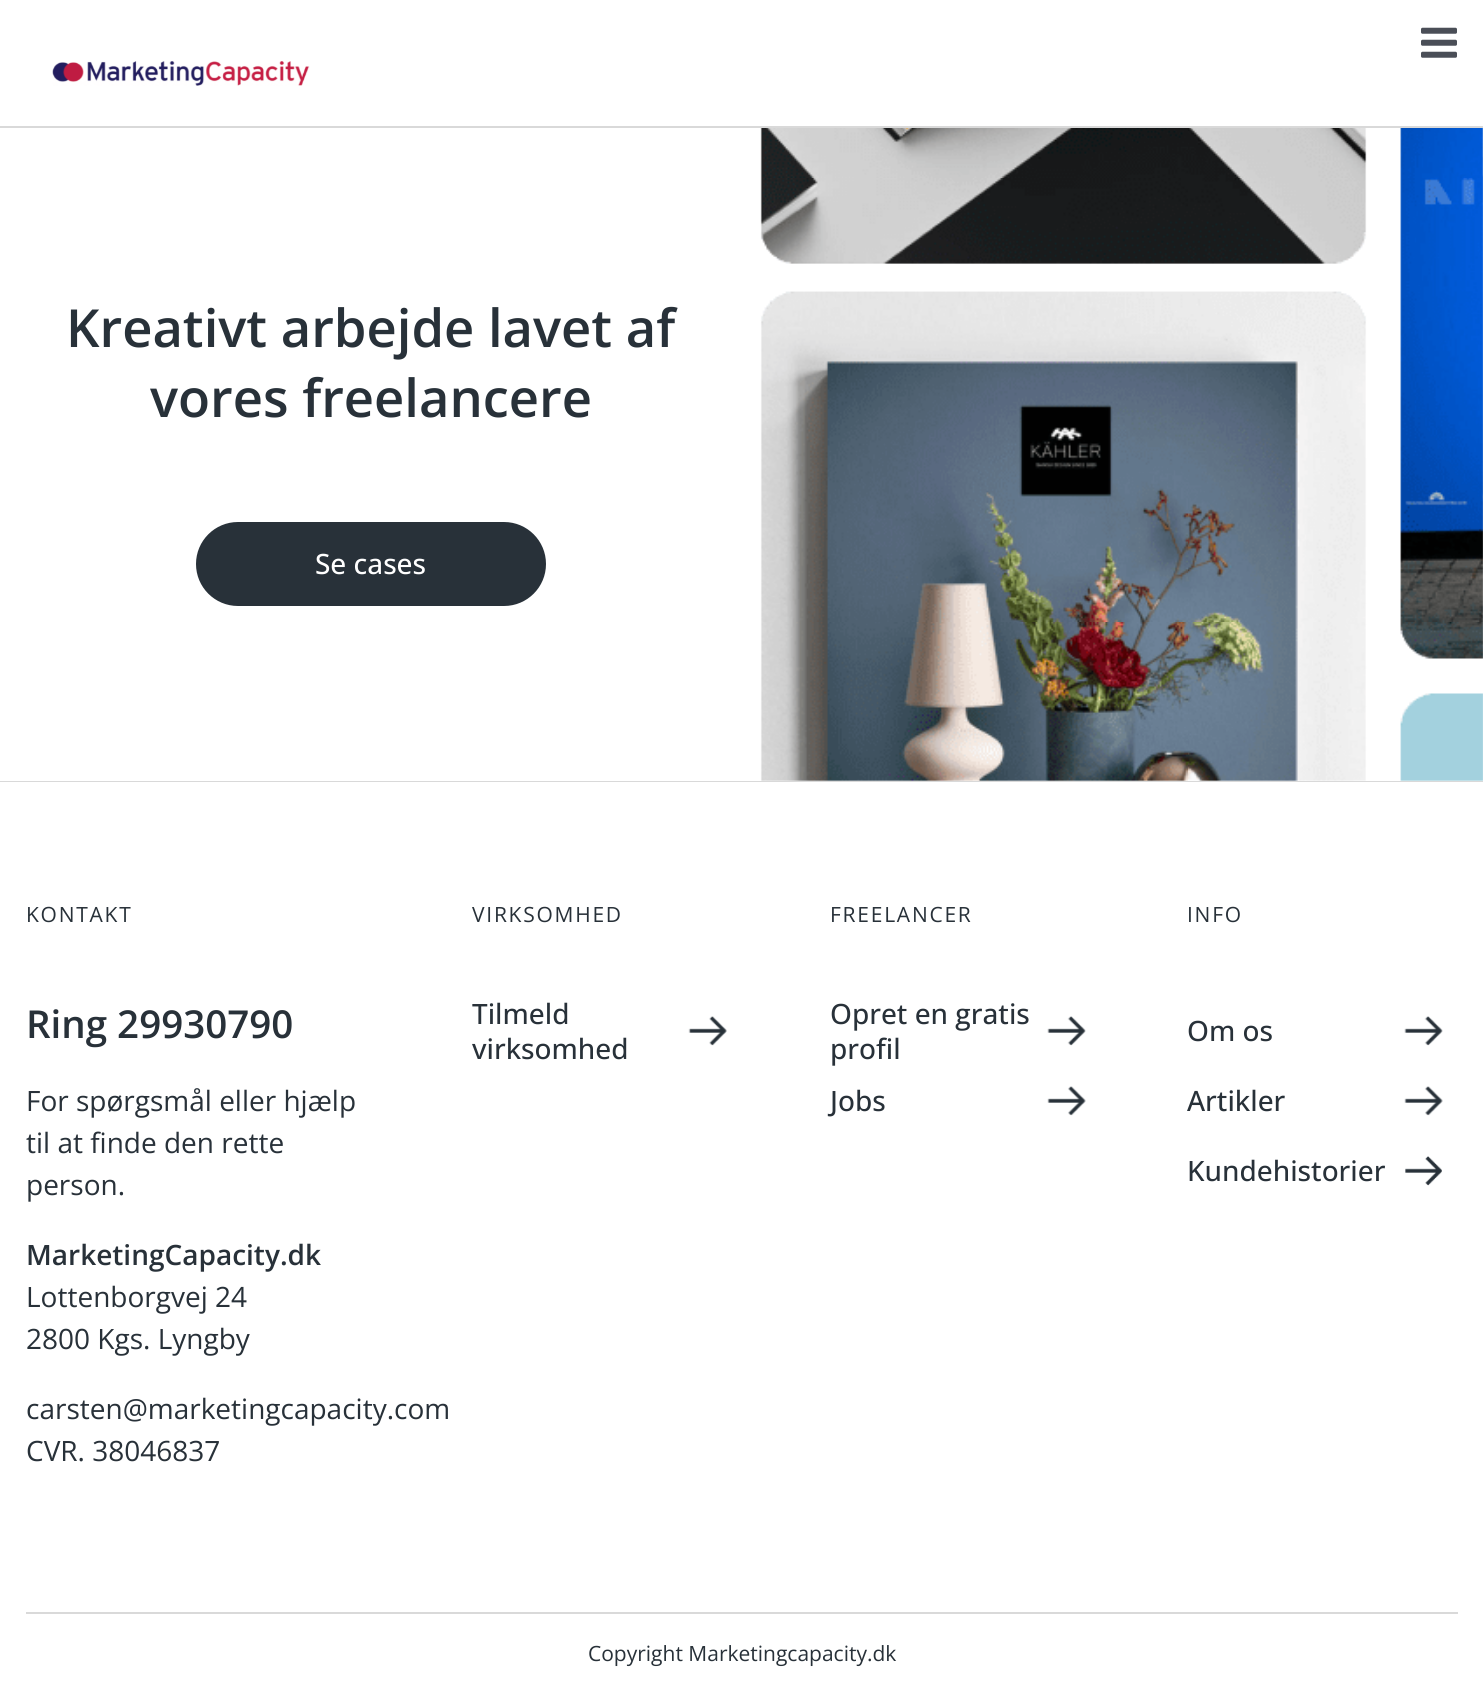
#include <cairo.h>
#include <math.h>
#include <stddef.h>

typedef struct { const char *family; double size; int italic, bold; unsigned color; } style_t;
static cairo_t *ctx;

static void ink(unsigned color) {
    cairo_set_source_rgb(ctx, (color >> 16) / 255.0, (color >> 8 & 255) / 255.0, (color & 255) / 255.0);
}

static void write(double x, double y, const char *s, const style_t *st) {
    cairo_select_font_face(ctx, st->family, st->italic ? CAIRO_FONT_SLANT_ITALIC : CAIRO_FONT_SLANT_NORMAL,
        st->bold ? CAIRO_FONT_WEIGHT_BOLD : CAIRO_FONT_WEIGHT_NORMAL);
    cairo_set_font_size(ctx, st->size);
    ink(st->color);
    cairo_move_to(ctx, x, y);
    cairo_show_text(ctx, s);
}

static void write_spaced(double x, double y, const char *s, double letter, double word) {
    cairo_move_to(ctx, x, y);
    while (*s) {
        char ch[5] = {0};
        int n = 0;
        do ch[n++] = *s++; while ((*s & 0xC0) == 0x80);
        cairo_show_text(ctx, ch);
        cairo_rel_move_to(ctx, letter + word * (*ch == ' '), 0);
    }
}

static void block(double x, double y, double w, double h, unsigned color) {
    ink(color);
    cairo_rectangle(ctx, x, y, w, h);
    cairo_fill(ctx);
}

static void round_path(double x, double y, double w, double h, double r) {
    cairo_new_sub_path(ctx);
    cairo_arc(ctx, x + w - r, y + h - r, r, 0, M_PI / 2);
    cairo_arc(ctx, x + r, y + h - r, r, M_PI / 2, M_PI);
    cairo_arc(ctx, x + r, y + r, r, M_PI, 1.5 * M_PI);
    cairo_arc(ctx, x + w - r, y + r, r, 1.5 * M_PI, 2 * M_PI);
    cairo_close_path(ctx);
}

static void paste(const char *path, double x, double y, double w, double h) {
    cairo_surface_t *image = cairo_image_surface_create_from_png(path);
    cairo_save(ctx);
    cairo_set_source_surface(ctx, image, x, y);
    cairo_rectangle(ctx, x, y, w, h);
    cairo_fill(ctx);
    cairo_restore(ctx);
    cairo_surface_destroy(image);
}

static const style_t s1 = {"Open Sans SemiBold", 52.5, 0, 0, 0x283139};
static const style_t s2 = {"Open Sans Medium", 28, 0, 0, 0xffffff};
static const style_t s3 = {"Open Sans SemiBold", 38.5, 0, 0, 0x283139};
static const style_t s4 = {"Open Sans", 28, 0, 0, 0x283139};
static const style_t s5 = {"Open Sans SemiBold", 28, 0, 0, 0x283139};
static const style_t s6 = {"Open Sans Medium", 28, 0, 0, 0x283139};
static const style_t s7 = {"Open Sans", 21, 0, 0, 0x283139};

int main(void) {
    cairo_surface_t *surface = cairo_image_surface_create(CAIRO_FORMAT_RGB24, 1483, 1682);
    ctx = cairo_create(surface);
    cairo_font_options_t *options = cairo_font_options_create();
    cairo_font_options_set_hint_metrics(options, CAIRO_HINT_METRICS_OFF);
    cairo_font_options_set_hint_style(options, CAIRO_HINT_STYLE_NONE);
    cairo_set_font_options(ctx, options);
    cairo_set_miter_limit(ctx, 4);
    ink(0xffffff);
    cairo_paint(ctx);
    block(0, 126, 1483, 2, 0xd9d9d9);
    paste("pic1.png", 1421, 27, 36, 31);
    paste("pic2.png", 52, 61, 258, 25);
    block(0, 781, 1483, 1, 0xd9d9d9);
    write(66, 347, "Kreativt arbejde lavet af", &s1);
    write(150, 417, "vores freelancere", &s1);
    round_path(197, 523, 348, 82, 41);
    cairo_fill_preserve(ctx);
    cairo_stroke(ctx);
    write(315, 574, "Se cases", &s2);
    paste("pic3.png", 760, 128, 723, 653);
    cairo_select_font_face(ctx, "Open Sans", CAIRO_FONT_SLANT_NORMAL, CAIRO_FONT_WEIGHT_NORMAL);
    cairo_set_font_size(ctx, 21);
    ink(0x283139);
    write_spaced(26, 922, "KONTAKT", 1.75, 0);
    write(26, 1038, "Ring 29930790", &s3);
    write(26, 1111, "For spørgsmål eller hjælp", &s4);
    write(26, 1153, "til at finde den rette", &s4);
    write(26, 1195, "person.", &s4);
    write(26, 1265, "MarketingCapacity.dk", &s5);
    write(26, 1307, "Lottenborgvej 24", &s4);
    write(26, 1349, "2800 Kgs. Lyngby", &s4);
    write(26, 1419, "carsten@marketingcapacity.com", &s4);
    write(26, 1461, "CVR. 38046837", &s4);
    cairo_set_font_size(ctx, 21);
    write_spaced(472, 922, "VIRKSOMHED", 1.75, 0);
    paste("pic4.png", 688, 1016, 39, 30);
    write(472, 1024, "Tilmeld", &s6);
    write(472, 1059, "virksomhed", &s6);
    cairo_select_font_face(ctx, "Open Sans", CAIRO_FONT_SLANT_NORMAL, CAIRO_FONT_WEIGHT_NORMAL);
    cairo_set_font_size(ctx, 21);
    write_spaced(830, 922, "FREELANCER", 1.75, 0);
    paste("pic5.png", 1047, 1016, 39, 30);
    write(830, 1024, "Opret en gratis", &s6);
    write(830, 1059, "profil", &s6);
    paste("pic6.png", 1047, 1086, 39, 30);
    write(830, 1111, "Jobs", &s6);
    cairo_select_font_face(ctx, "Open Sans", CAIRO_FONT_SLANT_NORMAL, CAIRO_FONT_WEIGHT_NORMAL);
    cairo_set_font_size(ctx, 21);
    write_spaced(1187, 922, "INFO", 1.75, 0);
    paste("pic7.png", 1404, 1016, 39, 30);
    write(1187, 1041, "Om os", &s6);
    paste("pic6.png", 1404, 1086, 39, 30);
    write(1187, 1111, "Artikler", &s6);
    paste("pic8.png", 1405, 1156, 37, 30);
    write(1187, 1181, "Kundehistorier", &s6);
    block(26, 1612, 1432, 2, 0xd9d9d9);
    write(588, 1661, "Copyright Marketingcapacity.dk", &s7);
    cairo_surface_write_to_png(surface, "screenshot.png");
    cairo_font_options_destroy(options);
    cairo_destroy(ctx);
    cairo_surface_destroy(surface);
    return 0;
}
